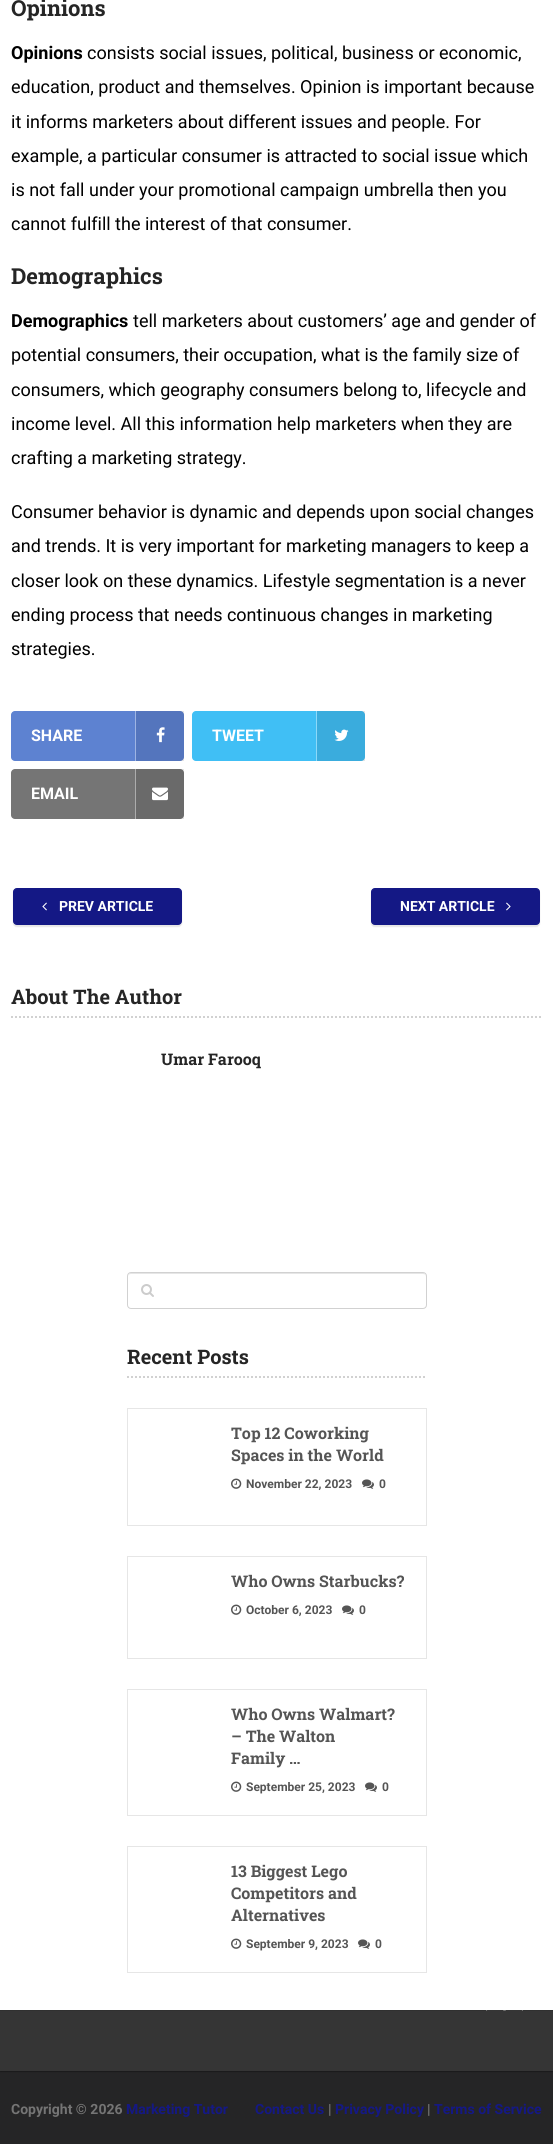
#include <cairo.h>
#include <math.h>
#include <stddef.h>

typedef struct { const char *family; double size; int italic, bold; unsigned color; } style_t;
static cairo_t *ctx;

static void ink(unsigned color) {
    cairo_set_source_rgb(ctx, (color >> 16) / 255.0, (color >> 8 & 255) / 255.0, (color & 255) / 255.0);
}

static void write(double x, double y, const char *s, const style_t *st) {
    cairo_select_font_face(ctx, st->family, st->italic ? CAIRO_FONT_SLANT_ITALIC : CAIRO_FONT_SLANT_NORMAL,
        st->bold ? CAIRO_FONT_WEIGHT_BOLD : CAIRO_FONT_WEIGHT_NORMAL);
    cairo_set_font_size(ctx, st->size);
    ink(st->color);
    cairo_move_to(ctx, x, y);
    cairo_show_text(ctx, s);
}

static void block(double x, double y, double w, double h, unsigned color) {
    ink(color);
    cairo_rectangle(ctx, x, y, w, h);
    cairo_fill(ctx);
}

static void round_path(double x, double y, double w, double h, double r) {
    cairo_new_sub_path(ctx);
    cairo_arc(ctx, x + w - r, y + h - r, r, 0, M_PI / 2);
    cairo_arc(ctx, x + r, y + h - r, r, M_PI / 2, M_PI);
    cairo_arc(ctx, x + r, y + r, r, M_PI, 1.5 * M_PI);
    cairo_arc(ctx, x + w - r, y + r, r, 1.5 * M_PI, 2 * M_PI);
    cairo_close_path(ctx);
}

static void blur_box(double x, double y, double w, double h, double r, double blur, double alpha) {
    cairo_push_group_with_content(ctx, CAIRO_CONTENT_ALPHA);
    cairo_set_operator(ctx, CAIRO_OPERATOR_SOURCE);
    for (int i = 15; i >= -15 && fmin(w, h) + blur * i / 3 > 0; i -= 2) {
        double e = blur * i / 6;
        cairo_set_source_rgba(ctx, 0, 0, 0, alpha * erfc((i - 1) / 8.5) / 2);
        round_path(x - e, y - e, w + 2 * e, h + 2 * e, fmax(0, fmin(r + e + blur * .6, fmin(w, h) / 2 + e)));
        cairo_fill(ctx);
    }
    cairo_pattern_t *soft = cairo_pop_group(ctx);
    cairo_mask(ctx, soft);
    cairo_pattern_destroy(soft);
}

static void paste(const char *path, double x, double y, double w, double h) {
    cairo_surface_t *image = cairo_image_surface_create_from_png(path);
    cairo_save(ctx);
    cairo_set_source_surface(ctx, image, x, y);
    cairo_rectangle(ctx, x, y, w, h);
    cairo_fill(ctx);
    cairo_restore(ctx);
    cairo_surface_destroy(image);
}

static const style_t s1 = {"Roboto Slab", 22, 0, 1, 0x252525};
static const style_t s2 = {"Roboto", 18, 0, 1, 0x000000};
static const style_t s3 = {"Roboto", 18, 0, 0, 0x000000};
static const style_t s4 = {"Roboto", 16, 0, 1, 0xffffff};
static const style_t s5 = {"Roboto", 14, 0, 1, 0xffffff};
static const style_t s6 = {"Roboto Slab", 20, 0, 1, 0x252525};
static const style_t s7 = {"Roboto Slab", 16, 0, 1, 0x252525};
static const style_t s8 = {"Roboto Slab", 16, 0, 1, 0x555555};
static const style_t s9 = {"Roboto", 12, 0, 1, 0x555555};
static const style_t s10 = {"Roboto", 14, 0, 1, 0x757575};
static const style_t s11 = {"Roboto", 14, 0, 1, 0x141885};

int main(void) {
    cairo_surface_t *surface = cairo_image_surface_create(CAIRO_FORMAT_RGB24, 553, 2144);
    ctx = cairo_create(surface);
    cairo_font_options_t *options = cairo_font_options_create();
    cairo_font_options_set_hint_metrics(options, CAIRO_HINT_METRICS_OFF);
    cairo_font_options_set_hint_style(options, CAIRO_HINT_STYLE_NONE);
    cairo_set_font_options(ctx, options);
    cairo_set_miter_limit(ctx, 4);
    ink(0xffffff);
    cairo_paint(ctx);
    write(11, 16, "Opinions", &s1);
    write(11, 59, "Opinions", &s2);
    write(87, 59, "consists social issues, political, business or economic,", &s3);
    write(11, 93, "education, product and themselves. Opinion is important because", &s3);
    write(11, 128, "it informs marketers about different issues and people. For", &s3);
    write(11, 162, "example, a particular consumer is attracted to social issue which", &s3);
    write(11, 196, "is not fall under your promotional campaign umbrella then you", &s3);
    write(11, 230, "cannot fulfill the interest of that consumer.", &s3);
    write(11, 284, "Demographics", &s1);
    write(11, 327, "Demographics", &s2);
    write(133, 327, "tell marketers about customers’ age and gender of", &s3);
    write(11, 361, "potential consumers, their occupation, what is the family size of", &s3);
    write(11, 396, "consumers, which geography consumers belong to, lifecycle and", &s3);
    write(11, 430, "income level. All this information help marketers when they are", &s3);
    write(11, 464, "crafting a marketing strategy.", &s3);
    write(11, 518, "Consumer behavior is dynamic and depends upon social changes", &s3);
    write(11, 552, "and trends. It is very important for marketing managers to keep a", &s3);
    write(11, 587, "closer look on these dynamics. Lifestyle segmentation is a never", &s3);
    write(11, 621, "ending process that needs continuous changes in marketing", &s3);
    write(11, 655, "strategies.", &s3);
    ink(0x5d82d1);
    round_path(11, 711, 173, 50, 4);
    cairo_fill(ctx);
    write(31, 741, "SHARE", &s4);
    block(135, 711, 1, 50, 0x9eb4e3);
    cairo_set_source_rgba(ctx, 0, 0, 0, 0.1);
    cairo_rectangle(ctx, 136, 711, 48, 50);
    cairo_fill(ctx);
    paste("pic1.png", 156, 727, 9, 16);
    ink(0x40bff5);
    round_path(192, 711, 173, 50, 4);
    cairo_fill(ctx);
    write(212, 741, "TWEET", &s4);
    block(316, 711, 1, 50, 0x8cd9f9);
    cairo_set_source_rgba(ctx, 0, 0, 0, 0.1);
    cairo_rectangle(ctx, 317, 711, 48, 50);
    cairo_fill(ctx);
    paste("pic2.png", 334, 729, 15, 12);
    ink(0x757575);
    round_path(11, 769, 173, 50, 4);
    cairo_fill(ctx);
    write(31, 799, "EMAIL", &s4);
    block(135, 769, 1, 50, 0xacacac);
    cairo_set_source_rgba(ctx, 0, 0, 0, 0.1);
    cairo_rectangle(ctx, 136, 769, 48, 50);
    cairo_fill(ctx);
    paste("pic3.png", 152, 787, 16, 14);
    ink(0x000000);
    blur_box(13, 890, 169, 37, 4, 0.5, 0.1);
    ink(0x141885);
    round_path(13.5, 888.5, 168, 36, 3.5);
    cairo_fill_preserve(ctx);
    cairo_set_line_width(ctx, 1);
    cairo_stroke(ctx);
    paste("pic4.png", 42, 902, 5, 9);
    write(59, 911, "PREV ARTICLE", &s5);
    ink(0x000000);
    blur_box(371, 890, 169, 37, 4, 0.5, 0.1);
    ink(0x141885);
    round_path(371.5, 888.5, 168, 36, 3.5);
    cairo_fill_preserve(ctx);
    cairo_stroke(ctx);
    write(400, 911, "NEXT ARTICLE", &s5);
    paste("pic5.png", 506, 902, 5, 9);
    cairo_new_path(ctx);
    cairo_move_to(ctx, 11, 1017);
    cairo_line_to(ctx, 542, 1017);
    ink(0xd1d1d1);
    cairo_set_line_width(ctx, 2);
    cairo_set_dash(ctx, (double[]){2, 2}, 2, 0);
    cairo_stroke(ctx);
    write(11, 1004, "About The Author", &s6);
    write(161, 1065, "Umar Farooq", &s7);
    ink(0xe6e6e6);
    cairo_new_path(ctx);
    cairo_move_to(ctx, 131, 1274);
    cairo_line_to(ctx, 423, 1274);
    cairo_curve_to(ctx, 425, 1274, 426, 1275, 426, 1277);
    cairo_line_to(ctx, 425, 1274);
    cairo_line_to(ctx, 424, 1273);
    cairo_line_to(ctx, 131, 1273);
    cairo_curve_to(ctx, 129, 1273, 128, 1275, 128, 1277);
    cairo_curve_to(ctx, 128, 1275, 129, 1274, 131, 1274);
    cairo_close_path(ctx);
    cairo_fill(ctx);
    round_path(127.5, 1272.5, 299, 36, 3.5);
    ink(0xd1d1d1);
    cairo_set_line_width(ctx, 1);
    cairo_set_dash(ctx, NULL, 0, 0);
    cairo_stroke(ctx);
    paste("pic6.png", 141, 1284, 13, 13);
    cairo_new_path(ctx);
    cairo_move_to(ctx, 127, 1377);
    cairo_line_to(ctx, 427, 1377);
    cairo_set_line_width(ctx, 2);
    cairo_set_dash(ctx, (double[]){2, 2}, 2, 0);
    cairo_stroke(ctx);
    write(127, 1364, "Recent Posts", &s6);
    cairo_rectangle(ctx, 127.5, 1408.5, 299, 117);
    ink(0xe6e6e6);
    cairo_set_line_width(ctx, 1);
    cairo_set_dash(ctx, NULL, 0, 0);
    cairo_stroke(ctx);
    write(231, 1439, "Top 12 Coworking", &s8);
    write(231, 1461, "Spaces in the World", &s8);
    paste("pic7.png", 231, 1478, 11, 11);
    write(246, 1488, "November 22, 2023", &s9);
    paste("pic8.png", 362, 1479, 12, 10);
    write(379, 1488, "0", &s9);
    cairo_rectangle(ctx, 127.5, 1556.5, 299, 102);
    ink(0xe6e6e6);
    cairo_stroke(ctx);
    write(231, 1587, "Who Owns Starbucks?", &s8);
    paste("pic7.png", 231, 1604, 11, 11);
    write(246, 1614, "October 6, 2023", &s9);
    paste("pic8.png", 342, 1605, 12, 10);
    write(359, 1614, "0", &s9);
    cairo_rectangle(ctx, 127.5, 1689.5, 299, 126);
    ink(0xe6e6e6);
    cairo_stroke(ctx);
    write(231, 1720, "Who Owns Walmart?", &s8);
    write(231, 1742, "– The Walton", &s8);
    write(231, 1764, "Family …", &s8);
    paste("pic7.png", 231, 1781, 11, 11);
    write(246, 1791, "September 25, 2023", &s9);
    paste("pic8.png", 365, 1782, 12, 10);
    write(382, 1791, "0", &s9);
    cairo_rectangle(ctx, 127.5, 1846.5, 299, 126);
    ink(0xe6e6e6);
    cairo_stroke(ctx);
    write(231, 1877, "13 Biggest Lego", &s8);
    write(231, 1899, "Competitors and", &s8);
    write(231, 1921, "Alternatives", &s8);
    paste("pic7.png", 231, 1938, 11, 11);
    write(246, 1948, "September 9, 2023", &s9);
    paste("pic8.png", 358, 1939, 12, 10);
    write(375, 1948, "0", &s9);
    block(0, 2072, 553, 72, 0x252526);
    block(0, 2071, 553, 1, 0x212122);
    ink(0x000000);
    blur_box(0, 2011, 553, 61, 0, 0.5, 0.2);
    block(0, 2011, 553, 60, 0x353535);
    block(0, 2010, 553, 1, 0x303030);
    cairo_save(ctx);
    cairo_rectangle(ctx, 0, 2010, 553, 1);
    cairo_clip(ctx);
    ink(0x353535);
    cairo_arc(ctx, 504.5, 2011.5, 18, 0, 2 * M_PI);
    cairo_fill_preserve(ctx);
    ink(0x717171);
    cairo_stroke(ctx);
    cairo_restore(ctx);
    paste("pic9.png", 503, 2010, 3, 1);
    write(11, 2114, "Copyright © 2026", &s10);
    write(126, 2114, "Marketing Tutor", &s11);
    write(255, 2114, "Contact Us", &s11);
    write(328, 2114, "|", &s10);
    write(335, 2114, "Privacy Policy", &s11);
    write(427, 2114, "|", &s10);
    write(434, 2114, "Terms of Service", &s11);
    cairo_surface_write_to_png(surface, "screenshot.png");
    cairo_font_options_destroy(options);
    cairo_destroy(ctx);
    cairo_surface_destroy(surface);
    return 0;
}
